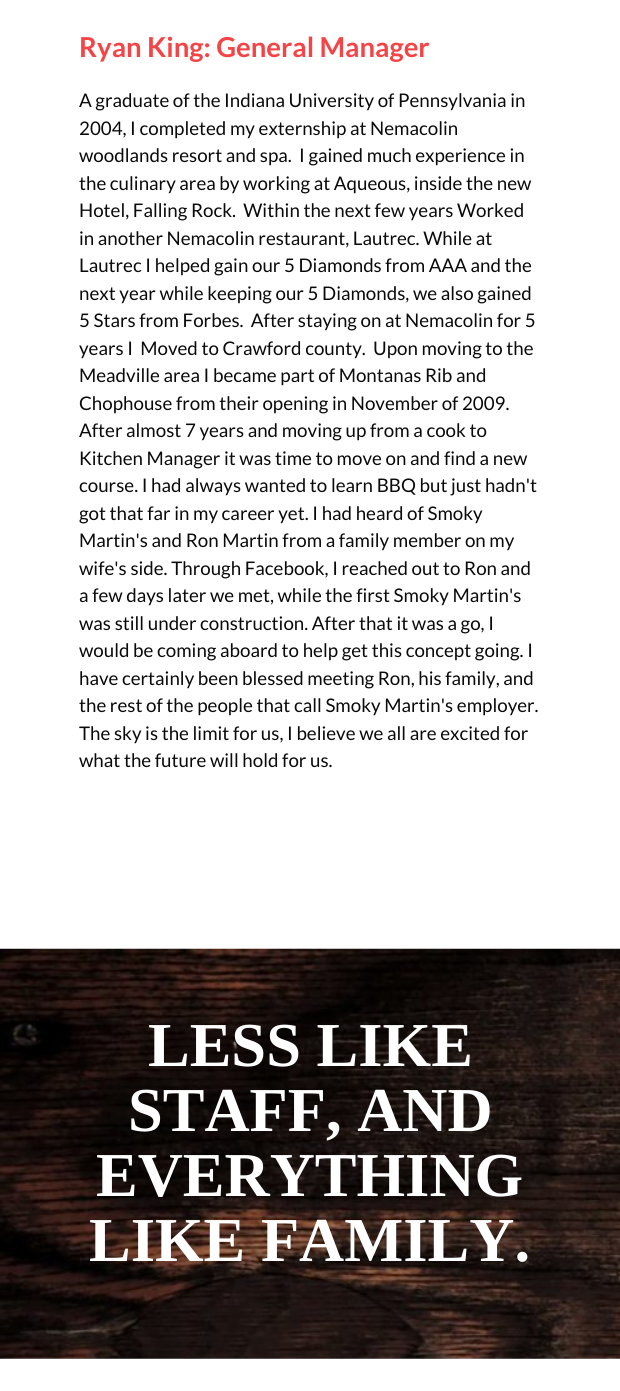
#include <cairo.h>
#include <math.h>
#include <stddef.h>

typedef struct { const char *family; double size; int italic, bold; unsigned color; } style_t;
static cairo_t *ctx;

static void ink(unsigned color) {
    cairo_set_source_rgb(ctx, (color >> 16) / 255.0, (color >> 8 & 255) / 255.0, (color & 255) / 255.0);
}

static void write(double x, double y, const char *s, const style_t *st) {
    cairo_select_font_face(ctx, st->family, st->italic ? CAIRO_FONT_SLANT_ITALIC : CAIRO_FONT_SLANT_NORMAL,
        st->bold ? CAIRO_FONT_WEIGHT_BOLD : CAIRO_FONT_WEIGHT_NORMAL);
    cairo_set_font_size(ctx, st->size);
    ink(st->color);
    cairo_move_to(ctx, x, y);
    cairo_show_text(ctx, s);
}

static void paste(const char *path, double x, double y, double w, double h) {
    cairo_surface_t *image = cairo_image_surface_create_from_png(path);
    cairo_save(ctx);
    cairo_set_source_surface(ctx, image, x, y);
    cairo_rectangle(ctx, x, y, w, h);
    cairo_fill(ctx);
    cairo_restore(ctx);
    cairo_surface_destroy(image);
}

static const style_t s1 = {"Lato", 27.5, 0, 1, 0xf64345};
static const style_t s2 = {"Lato", 18.75, 0, 0, 0x0a0a0a};
static const style_t s3 = {"Liberation Serif", 62.5, 0, 1, 0xffffff};

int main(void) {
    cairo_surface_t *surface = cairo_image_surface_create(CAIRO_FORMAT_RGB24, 620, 1391);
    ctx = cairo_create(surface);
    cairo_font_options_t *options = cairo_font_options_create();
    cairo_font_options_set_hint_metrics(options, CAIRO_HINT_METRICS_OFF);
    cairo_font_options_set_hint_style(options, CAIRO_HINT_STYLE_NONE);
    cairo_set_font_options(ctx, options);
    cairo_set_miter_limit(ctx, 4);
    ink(0xffffff);
    cairo_paint(ctx);
    write(79, 57, "Ryan King: General Manager", &s1);
    write(79, 107, "A graduate of the Indiana University of Pennsylvania in", &s2);
    write(79, 135, "2004, I completed my externship at Nemacolin", &s2);
    write(79, 162, "woodlands resort and spa.  I gained much experience in", &s2);
    write(79, 190, "the culinary area by working at Aqueous, inside the new", &s2);
    write(79, 217, "Hotel, Falling Rock.  Within the next few years Worked", &s2);
    write(79, 245, "in another Nemacolin restaurant, Lautrec. While at", &s2);
    write(79, 272, "Lautrec I helped gain our 5 Diamonds from AAA and the", &s2);
    write(79, 300, "next year while keeping our 5 Diamonds, we also gained", &s2);
    write(79, 327, "5 Stars from Forbes.  After staying on at Nemacolin for 5", &s2);
    write(79, 355, "years I  Moved to Crawford county.  Upon moving to the", &s2);
    write(79, 382, "Meadville area I became part of Montanas Rib and", &s2);
    write(79, 410, "Chophouse from their opening in November of 2009.", &s2);
    write(79, 437, "After almost 7 years and moving up from a cook to", &s2);
    write(79, 465, "Kitchen Manager it was time to move on and find a new", &s2);
    write(79, 492, "course. I had always wanted to learn BBQ but just hadn't", &s2);
    write(79, 520, "got that far in my career yet. I had heard of Smoky", &s2);
    write(79, 547, "Martin's and Ron Martin from a family member on my", &s2);
    write(79, 575, "wife's side. Through Facebook, I reached out to Ron and", &s2);
    write(79, 602, "a few days later we met, while the first Smoky Martin's", &s2);
    write(79, 630, "was still under construction. After that it was a go, I", &s2);
    write(79, 657, "would be coming aboard to help get this concept going. I", &s2);
    write(79, 685, "have certainly been blessed meeting Ron, his family, and", &s2);
    write(79, 712, "the rest of the people that call Smoky Martin's employer.", &s2);
    write(79, 740, "The sky is the limit for us, I believe we all are excited for", &s2);
    write(79, 767, "what the future will hold for us.", &s2);
    paste("pic1.png", 0, 948, 620, 411);
    write(148, 1066, "LESS LIKE", &s3);
    write(128, 1131, "STAFF, AND", &s3);
    write(96, 1196, "EVERYTHING", &s3);
    write(89, 1261, "LIKE FAMILY.", &s3);
    cairo_surface_write_to_png(surface, "screenshot.png");
    cairo_font_options_destroy(options);
    cairo_destroy(ctx);
    cairo_surface_destroy(surface);
    return 0;
}
